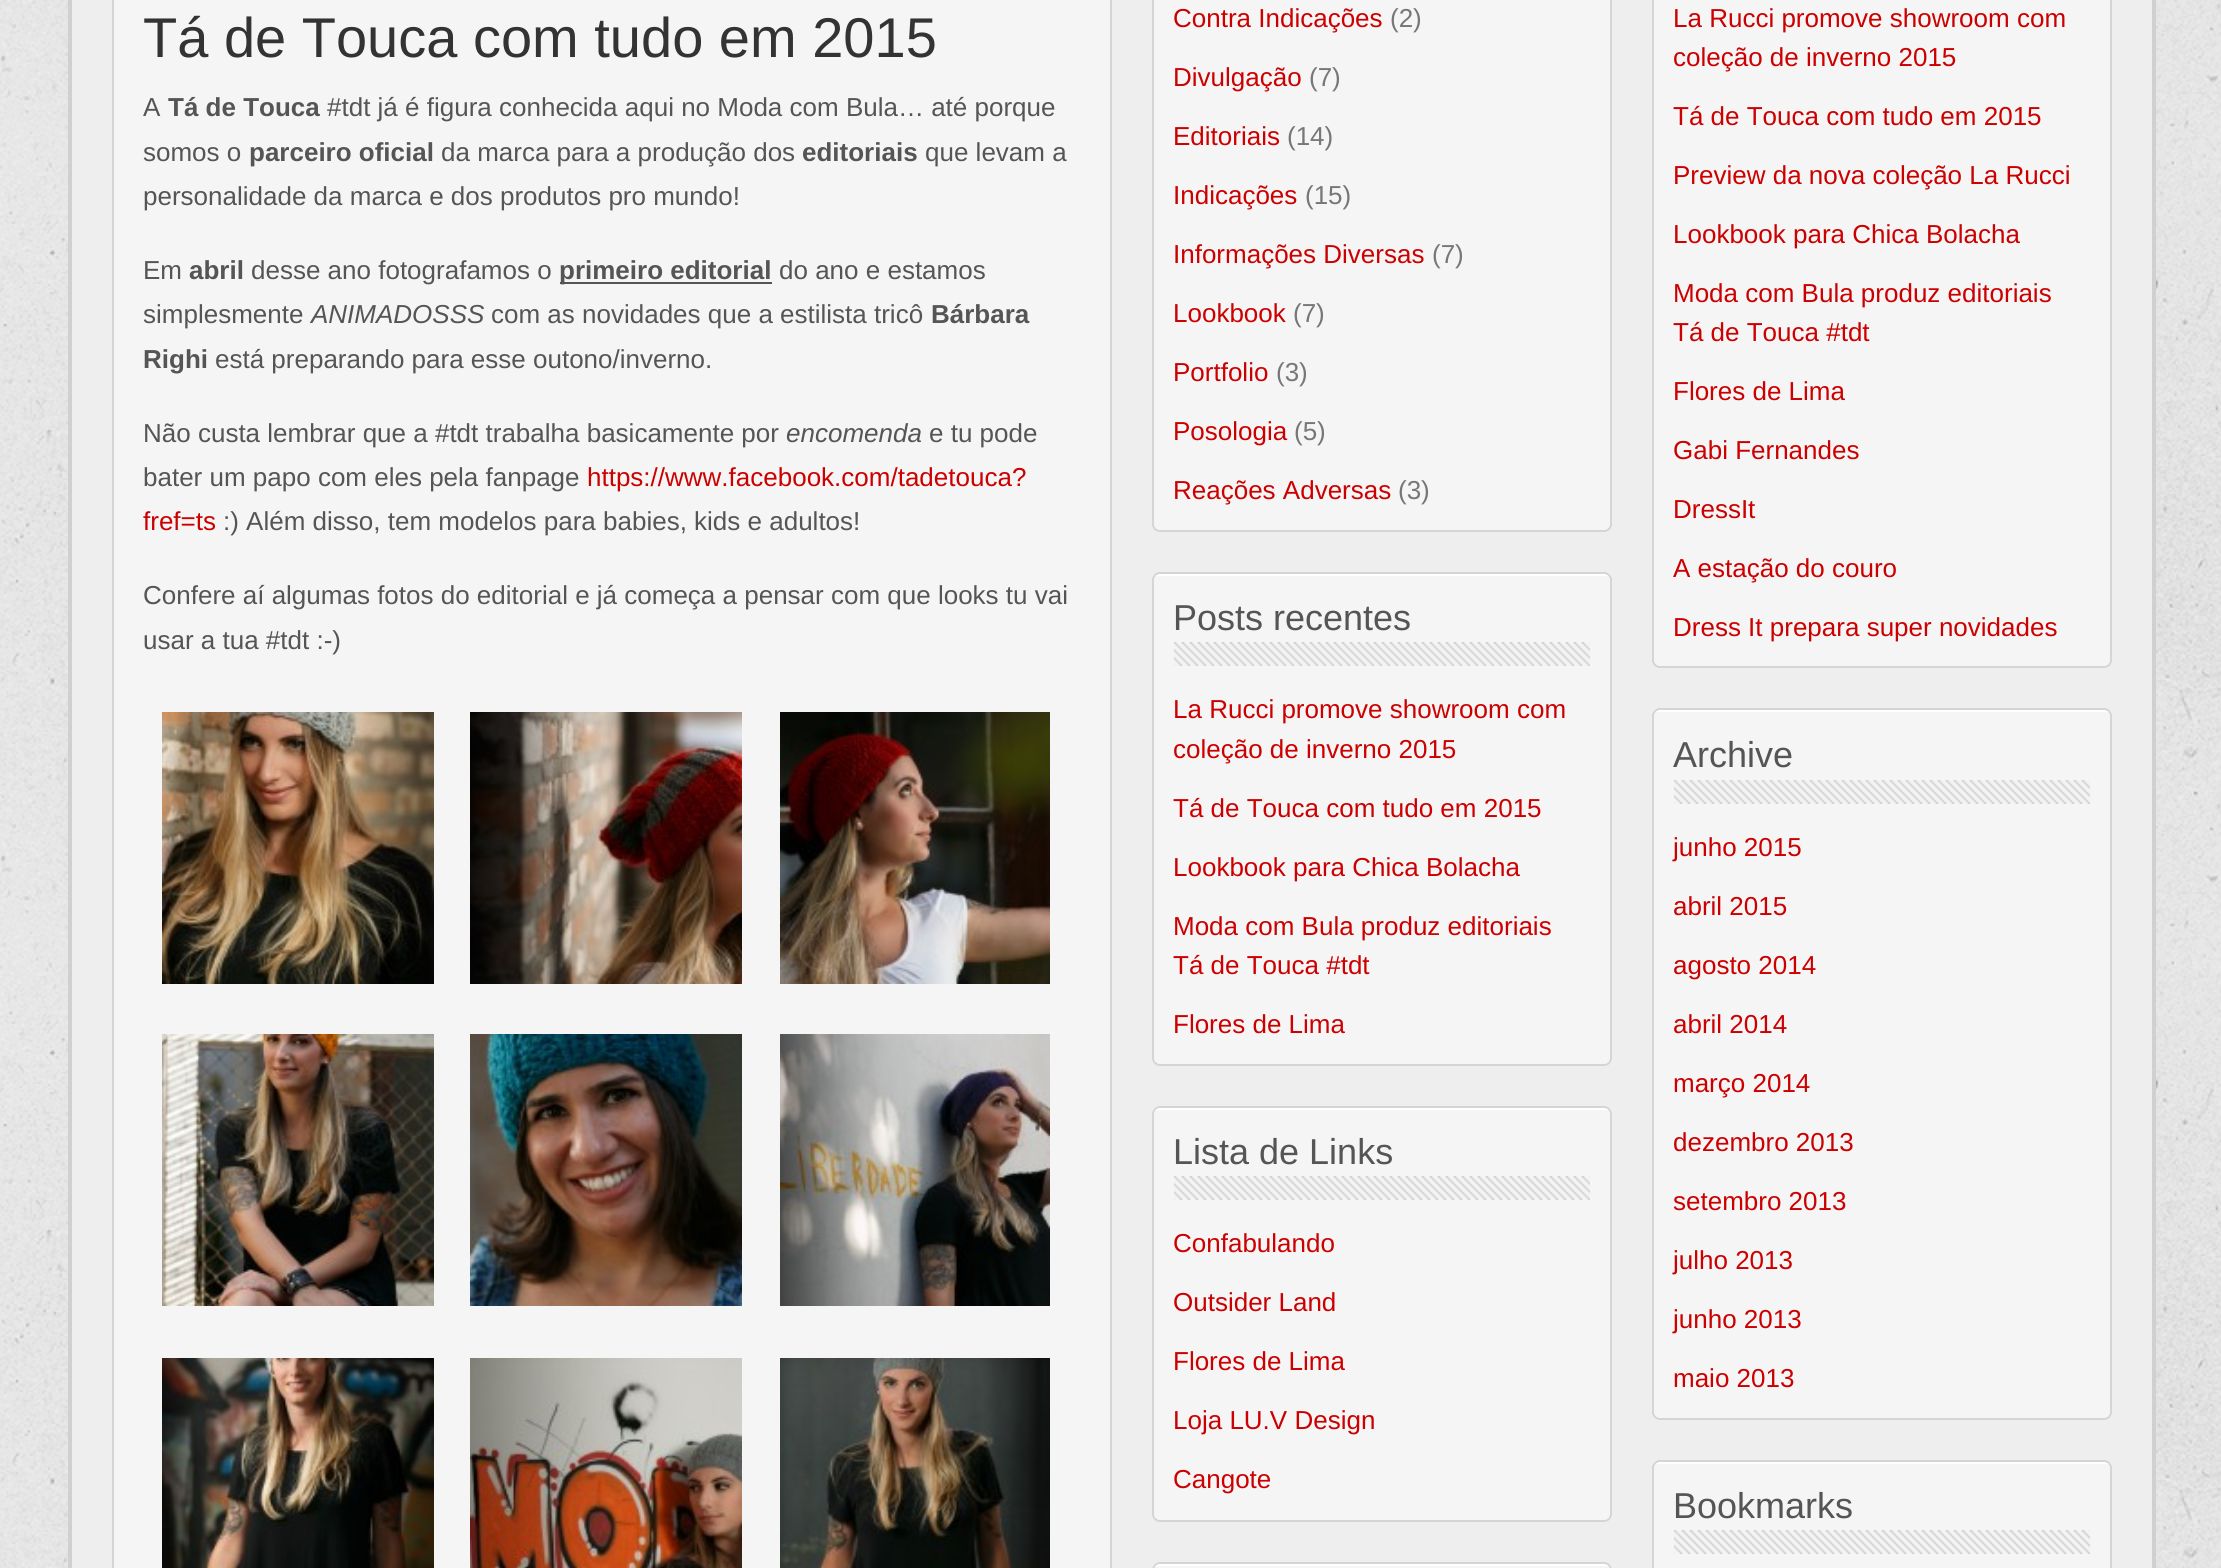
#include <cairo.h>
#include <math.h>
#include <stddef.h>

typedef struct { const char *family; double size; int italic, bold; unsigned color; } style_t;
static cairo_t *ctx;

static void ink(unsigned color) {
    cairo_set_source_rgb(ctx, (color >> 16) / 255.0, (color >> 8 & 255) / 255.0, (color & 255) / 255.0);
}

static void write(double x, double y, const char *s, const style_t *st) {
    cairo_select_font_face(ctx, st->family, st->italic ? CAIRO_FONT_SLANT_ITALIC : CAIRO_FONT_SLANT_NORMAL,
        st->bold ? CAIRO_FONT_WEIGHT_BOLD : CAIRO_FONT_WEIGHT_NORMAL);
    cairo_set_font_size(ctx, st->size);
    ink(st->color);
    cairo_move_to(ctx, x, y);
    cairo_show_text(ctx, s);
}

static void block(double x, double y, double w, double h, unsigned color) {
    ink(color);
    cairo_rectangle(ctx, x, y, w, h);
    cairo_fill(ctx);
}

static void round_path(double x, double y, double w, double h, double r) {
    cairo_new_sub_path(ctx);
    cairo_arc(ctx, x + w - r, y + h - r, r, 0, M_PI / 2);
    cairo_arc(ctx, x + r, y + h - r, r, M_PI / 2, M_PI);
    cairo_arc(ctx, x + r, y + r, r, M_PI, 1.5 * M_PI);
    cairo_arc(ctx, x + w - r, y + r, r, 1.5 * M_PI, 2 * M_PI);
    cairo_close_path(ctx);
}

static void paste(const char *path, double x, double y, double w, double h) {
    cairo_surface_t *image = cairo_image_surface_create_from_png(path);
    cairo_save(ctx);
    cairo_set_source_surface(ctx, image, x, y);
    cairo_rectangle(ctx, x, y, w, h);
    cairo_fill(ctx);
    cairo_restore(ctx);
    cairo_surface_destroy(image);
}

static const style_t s1 = {"Liberation Sans", 56, 0, 0, 0x333333};
static const style_t s2 = {"Liberation Sans", 26, 0, 0, 0x555555};
static const style_t s3 = {"Liberation Sans", 26, 0, 1, 0x555555};
static const style_t s4 = {"Liberation Sans", 26, 1, 0, 0x555555};
static const style_t s5 = {"Liberation Sans", 26, 0, 0, 0xcc0000};
static const style_t s6 = {"Liberation Sans", 26, 0, 0, 0x777777};
static const style_t s7 = {"Liberation Sans", 36, 0, 0, 0x555555};

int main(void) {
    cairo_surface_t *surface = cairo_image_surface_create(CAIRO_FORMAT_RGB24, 2221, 1568);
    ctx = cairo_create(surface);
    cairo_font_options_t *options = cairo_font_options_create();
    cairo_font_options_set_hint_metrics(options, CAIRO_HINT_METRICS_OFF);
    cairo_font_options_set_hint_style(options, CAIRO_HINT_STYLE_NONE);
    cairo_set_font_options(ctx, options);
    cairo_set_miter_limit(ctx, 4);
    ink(0xeeeeee);
    cairo_paint(ctx);
    paste("pic1.png", 0, 0, 2221, 1568);
    block(72, 0, 2080, 1568, 0xeeeeee);
    block(2152, 0, 4, 1568, 0xd0d0d0);
    block(68, 0, 4, 1568, 0xd0d0d0);
    ink(0xf5f5f5);
    cairo_rectangle(ctx, 113, -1, 998, 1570);
    cairo_fill_preserve(ctx);
    ink(0xd5d5d5);
    cairo_stroke(ctx);
    write(143, 57, "Tá de Touca com tudo em 2015", &s1);
    write(143, 116, "A", &s2);
    write(168, 116, "Tá de Touca", &s3);
    write(327, 116, "#tdt já é figura conhecida aqui no Moda com Bula… até porque", &s2);
    write(143, 161, "somos o", &s2);
    write(249, 161, "parceiro oficial", &s3);
    write(441, 161, "da marca para a produção dos", &s2);
    write(802, 161, "editoriais", &s3);
    write(925, 161, "que levam a", &s2);
    write(143, 205, "personalidade da marca e dos produtos pro mundo!", &s2);
    write(143, 279, "Em", &s2);
    write(189, 279, "abril", &s3);
    write(251, 279, "desse ano fotografamos o", &s2);
    block(560, 282, 212, 2, 0x555555);
    write(559, 279, "primeiro editorial", &s3);
    write(779, 279, "do ano e estamos", &s2);
    write(143, 323, "simplesmente", &s2);
    write(311, 323, "ANIMADOSSS", &s4);
    write(491, 323, "com as novidades que a estilista tricô", &s2);
    write(931, 323, "Bárbara", &s3);
    write(143, 368, "Righi", &s3);
    write(215, 368, "está preparando para esse outono/inverno.", &s2);
    write(143, 442, "Não custa lembrar que a #tdt trabalha basicamente por", &s2);
    write(786, 442, "encomenda", &s4);
    write(929, 442, "e tu pode", &s2);
    write(143, 486, "bater um papo com eles pela fanpage", &s2);
    write(587, 486, "https://www.facebook.com/tadetouca?", &s5);
    write(143, 530, "fref=ts", &s5);
    write(223, 530, ":) Além disso, tem modelos para babies, kids e adultos!", &s2);
    write(143, 604, "Confere aí algumas fotos do editorial e já começa a pensar com que looks tu vai", &s2);
    write(143, 649, "usar a tua #tdt :-)", &s2);
    paste("pic2.png", 162, 712, 272, 272);
    paste("pic3.png", 470, 712, 272, 272);
    paste("pic4.png", 780, 712, 270, 272);
    paste("pic5.png", 162, 1034, 272, 272);
    paste("pic6.png", 470, 1034, 272, 272);
    paste("pic7.png", 780, 1034, 270, 272);
    paste("pic8.png", 162, 1358, 272, 210);
    paste("pic9.png", 470, 1358, 272, 210);
    paste("pic10.png", 780, 1358, 270, 210);
    ink(0xf5f5f5);
    round_path(1153, -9, 458, 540, 7);
    cairo_fill_preserve(ctx);
    ink(0xd5d5d5);
    cairo_stroke(ctx);
    write(1173, 27, "Contra Indicações", &s5);
    write(1390, 27, "(2)", &s6);
    write(1173, 86, "Divulgação", &s5);
    write(1309, 86, "(7)", &s6);
    write(1173, 145, "Editoriais", &s5);
    write(1287, 145, "(14)", &s6);
    write(1173, 204, "Indicações", &s5);
    write(1305, 204, "(15)", &s6);
    write(1173, 263, "Informações Diversas", &s5);
    write(1432, 263, "(7)", &s6);
    write(1173, 322, "Lookbook", &s5);
    write(1293, 322, "(7)", &s6);
    write(1173, 381, "Portfolio", &s5);
    write(1276, 381, "(3)", &s6);
    write(1173, 440, "Posologia", &s5);
    write(1294, 440, "(5)", &s6);
    write(1173, 499, "Reações Adversas", &s5);
    write(1398, 499, "(3)", &s6);
    ink(0xf5f5f5);
    round_path(1152, 572, 460, 494, 8);
    cairo_fill(ctx);
    paste("pic11.png", 1153, 574, 458, 2);
    round_path(1153, 573, 458, 492, 7);
    ink(0xd5d5d5);
    cairo_stroke(ctx);
    paste("pic12.png", 1174, 642, 416, 24);
    write(1173, 630, "Posts recentes", &s7);
    write(1173, 718, "La Rucci promove showroom com", &s5);
    write(1173, 758, "coleção de inverno 2015", &s5);
    write(1173, 817, "Tá de Touca com tudo em 2015", &s5);
    write(1173, 876, "Lookbook para Chica Bolacha", &s5);
    write(1173, 935, "Moda com Bula produz editoriais", &s5);
    write(1173, 974, "Tá de Touca #tdt", &s5);
    write(1173, 1033, "Flores de Lima", &s5);
    ink(0xf5f5f5);
    round_path(1152, 1106, 460, 416, 8);
    cairo_fill(ctx);
    paste("pic11.png", 1153, 1108, 458, 2);
    round_path(1153, 1107, 458, 414, 7);
    ink(0xd5d5d5);
    cairo_stroke(ctx);
    paste("pic12.png", 1174, 1176, 416, 24);
    write(1173, 1164, "Lista de Links", &s7);
    write(1173, 1252, "Confabulando", &s5);
    write(1173, 1311, "Outsider Land", &s5);
    write(1173, 1370, "Flores de Lima", &s5);
    write(1173, 1429, "Loja LU.V Design", &s5);
    write(1173, 1488, "Cangote", &s5);
    ink(0xf5f5f5);
    round_path(1152, 1562, 460, 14, 8);
    cairo_fill(ctx);
    paste("pic11.png", 1153, 1564, 458, 2);
    round_path(1153, 1563, 458, 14, 7);
    ink(0xd5d5d5);
    cairo_stroke(ctx);
    ink(0xf5f5f5);
    round_path(1653, -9, 458, 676, 7);
    cairo_fill_preserve(ctx);
    ink(0xd5d5d5);
    cairo_stroke(ctx);
    write(1673, 27, "La Rucci promove showroom com", &s5);
    write(1673, 66, "coleção de inverno 2015", &s5);
    write(1673, 125, "Tá de Touca com tudo em 2015", &s5);
    write(1673, 184, "Preview da nova coleção La Rucci", &s5);
    write(1673, 243, "Lookbook para Chica Bolacha", &s5);
    write(1673, 302, "Moda com Bula produz editoriais", &s5);
    write(1673, 341, "Tá de Touca #tdt", &s5);
    write(1673, 400, "Flores de Lima", &s5);
    write(1673, 459, "Gabi Fernandes", &s5);
    write(1673, 518, "DressIt", &s5);
    write(1673, 577, "A estação do couro", &s5);
    write(1673, 636, "Dress It prepara super novidades", &s5);
    ink(0xf5f5f5);
    round_path(1652, 708, 460, 712, 8);
    cairo_fill(ctx);
    paste("pic11.png", 1653, 710, 458, 2);
    round_path(1653, 709, 458, 710, 7);
    ink(0xd5d5d5);
    cairo_stroke(ctx);
    paste("pic12.png", 1674, 780, 416, 24);
    write(1673, 767, "Archive", &s7);
    write(1673, 856, "junho 2015", &s5);
    write(1673, 915, "abril 2015", &s5);
    write(1673, 974, "agosto 2014", &s5);
    write(1673, 1033, "abril 2014", &s5);
    write(1673, 1092, "março 2014", &s5);
    write(1673, 1151, "dezembro 2013", &s5);
    write(1673, 1210, "setembro 2013", &s5);
    write(1673, 1269, "julho 2013", &s5);
    write(1673, 1328, "junho 2013", &s5);
    write(1673, 1387, "maio 2013", &s5);
    ink(0xf5f5f5);
    round_path(1652, 1460, 460, 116, 8);
    cairo_fill(ctx);
    paste("pic11.png", 1653, 1462, 458, 2);
    round_path(1653, 1461, 458, 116, 7);
    ink(0xd5d5d5);
    cairo_stroke(ctx);
    paste("pic12.png", 1674, 1530, 416, 24);
    write(1673, 1518, "Bookmarks", &s7);
    cairo_surface_write_to_png(surface, "screenshot.png");
    cairo_font_options_destroy(options);
    cairo_destroy(ctx);
    cairo_surface_destroy(surface);
    return 0;
}
